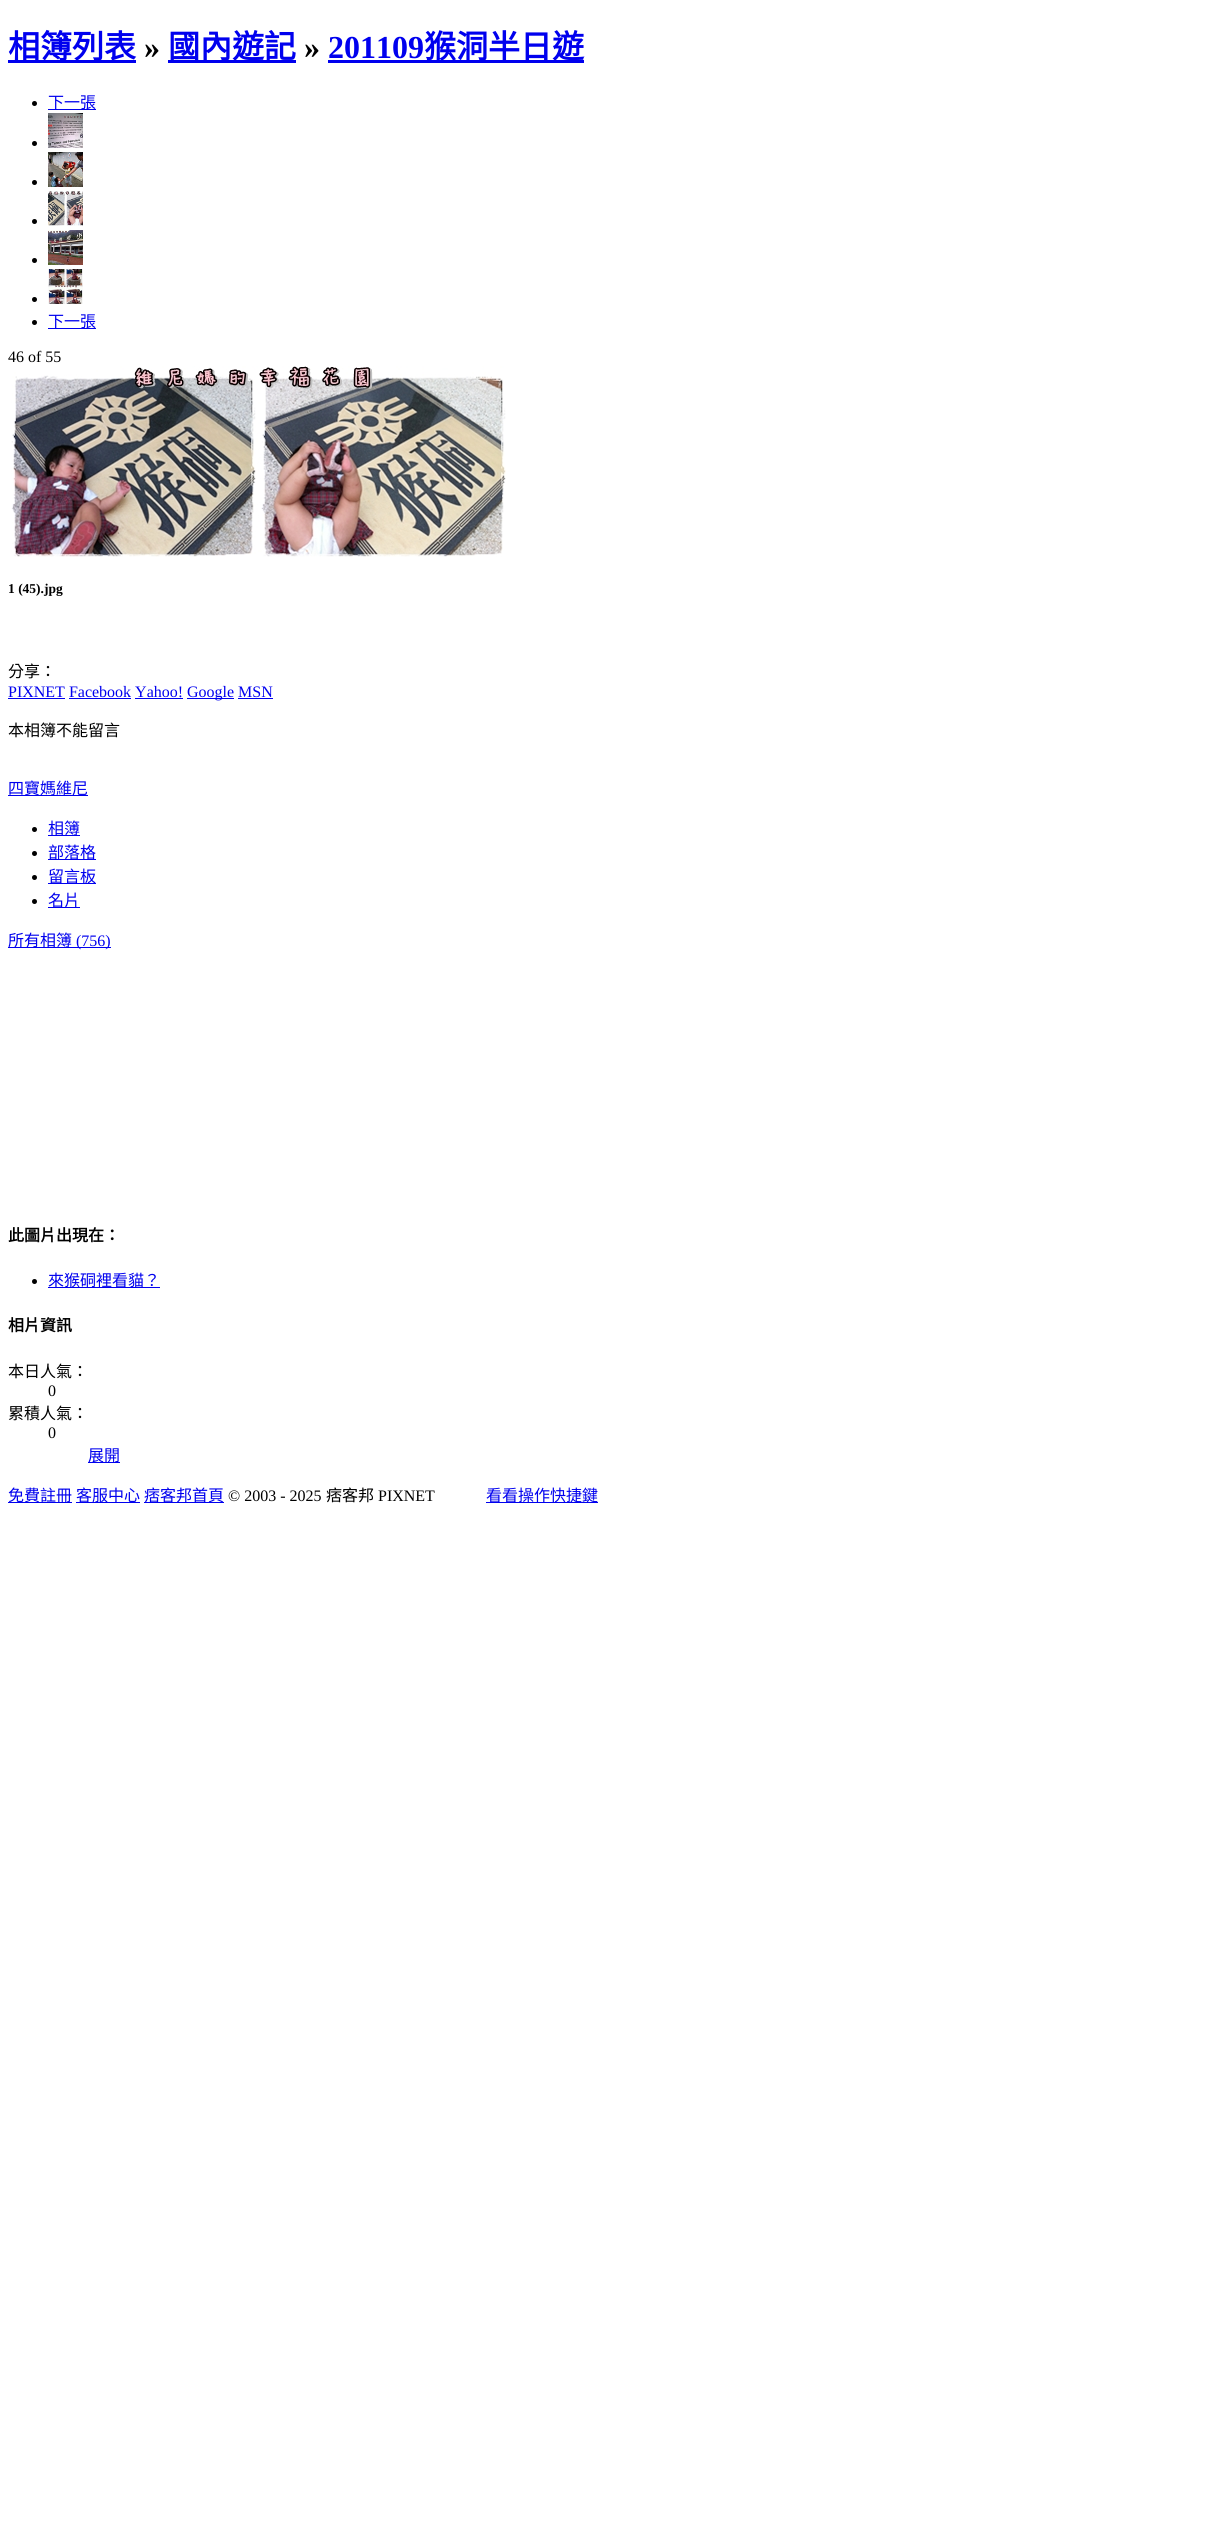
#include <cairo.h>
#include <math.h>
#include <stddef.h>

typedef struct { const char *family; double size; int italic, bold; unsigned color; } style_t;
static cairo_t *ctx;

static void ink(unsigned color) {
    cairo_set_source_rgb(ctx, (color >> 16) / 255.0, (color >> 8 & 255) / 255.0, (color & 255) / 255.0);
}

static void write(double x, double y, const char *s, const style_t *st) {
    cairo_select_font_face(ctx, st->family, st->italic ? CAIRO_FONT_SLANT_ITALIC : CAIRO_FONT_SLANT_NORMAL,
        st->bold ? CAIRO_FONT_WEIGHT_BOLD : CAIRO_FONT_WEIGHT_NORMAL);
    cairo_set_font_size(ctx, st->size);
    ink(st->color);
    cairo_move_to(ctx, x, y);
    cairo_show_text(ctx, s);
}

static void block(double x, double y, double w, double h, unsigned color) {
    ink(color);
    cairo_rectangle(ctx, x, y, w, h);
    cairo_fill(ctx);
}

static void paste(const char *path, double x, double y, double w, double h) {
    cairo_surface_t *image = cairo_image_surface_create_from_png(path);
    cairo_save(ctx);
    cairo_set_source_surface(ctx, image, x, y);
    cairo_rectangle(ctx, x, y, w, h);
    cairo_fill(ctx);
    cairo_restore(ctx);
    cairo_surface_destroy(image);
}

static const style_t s1 = {"Noto Sans CJK TC", 32, 0, 1, 0x0000ee};
static const style_t s2 = {"Liberation Serif", 32, 0, 1, 0x000000};
static const style_t s3 = {"Liberation Serif", 32, 0, 1, 0x0000ee};
static const style_t s4 = {"Noto Sans CJK TC", 16, 0, 0, 0x0000ee};
static const style_t s5 = {"Liberation Serif", 16, 0, 0, 0x000000};
static const style_t s6 = {"Liberation Serif", 13.5, 0, 1, 0x000000};
static const style_t s7 = {"Noto Sans CJK TC", 16, 0, 0, 0x000000};
static const style_t s8 = {"Liberation Serif", 16, 0, 0, 0x0000ee};
static const style_t s9 = {"Noto Sans CJK TC", 16, 0, 1, 0x000000};

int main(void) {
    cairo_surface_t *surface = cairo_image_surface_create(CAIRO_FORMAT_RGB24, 1205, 2528);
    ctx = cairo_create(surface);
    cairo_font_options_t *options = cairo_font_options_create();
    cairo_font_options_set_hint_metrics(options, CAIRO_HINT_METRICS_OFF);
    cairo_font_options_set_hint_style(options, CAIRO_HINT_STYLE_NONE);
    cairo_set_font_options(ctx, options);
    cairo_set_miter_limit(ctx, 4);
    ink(0xffffff);
    cairo_paint(ctx);
    block(8, 60, 128, 3, 0x0000ee);
    write(8, 58, "相簿列表", &s1);
    write(144, 58, "»", &s2);
    block(168, 60, 128, 3, 0x0000ee);
    write(168, 58, "國內遊記", &s1);
    write(304, 58, "»", &s2);
    write(328, 58, "201109", &s3);
    block(328, 60, 256, 3, 0x0000ee);
    write(424, 58, "猴洞半日遊", &s1);
    ink(0x000000);
    cairo_new_path(ctx);
    cairo_arc(ctx, 34.5, 103.5, 2.5, 0, 2 * M_PI);
    cairo_fill(ctx);
    block(48, 109, 48, 1, 0x0000ee);
    write(48, 108, "下一張", &s4);
    ink(0x000000);
    cairo_new_path(ctx);
    cairo_arc(ctx, 34.5, 143.5, 2.5, 0, 2 * M_PI);
    cairo_fill(ctx);
    paste("pic1.png", 48, 113, 35, 35);
    cairo_arc(ctx, 34.5, 182.5, 2.5, 0, 2 * M_PI);
    cairo_fill(ctx);
    paste("pic2.png", 48, 152, 35, 35);
    cairo_arc(ctx, 34.5, 221.5, 2.5, 0, 2 * M_PI);
    cairo_fill(ctx);
    paste("pic3.png", 48, 191, 35, 35);
    cairo_arc(ctx, 34.5, 260.5, 2.5, 0, 2 * M_PI);
    cairo_fill(ctx);
    paste("pic4.png", 48, 230, 35, 35);
    cairo_arc(ctx, 34.5, 299.5, 2.5, 0, 2 * M_PI);
    cairo_fill(ctx);
    paste("pic5.png", 48, 269, 35, 35);
    cairo_arc(ctx, 34.5, 322.5, 2.5, 0, 2 * M_PI);
    cairo_fill(ctx);
    block(48, 328, 48, 1, 0x0000ee);
    write(48, 327, "下一張", &s4);
    write(8, 362, "46 of 55", &s5);
    paste("pic6.png", 11, 366, 495, 191);
    write(8, 593, "1 (45).jpg", &s6);
    write(8, 677, "分享：", &s7);
    write(8, 697, "PIXNET Facebook Yahoo!", &s8);
    block(8, 698, 57, 1, 0x0000ee);
    block(187, 698, 47, 1, 0x0000ee);
    write(187, 697, "Google MSN", &s8);
    block(69, 698, 62, 1, 0x0000ee);
    block(135, 698, 48, 1, 0x0000ee);
    block(238, 698, 35, 1, 0x0000ee);
    write(8, 736, "本相簿不能留言", &s7);
    block(8, 795, 80, 1, 0x0000ee);
    write(8, 794, "四寶媽維尼", &s4);
    ink(0x000000);
    cairo_new_path(ctx);
    cairo_arc(ctx, 34.5, 829.5, 2.5, 0, 2 * M_PI);
    cairo_fill(ctx);
    block(48, 835, 32, 1, 0x0000ee);
    write(48, 834, "相簿", &s4);
    ink(0x000000);
    cairo_new_path(ctx);
    cairo_arc(ctx, 34.5, 853.5, 2.5, 0, 2 * M_PI);
    cairo_fill(ctx);
    block(48, 859, 48, 1, 0x0000ee);
    write(48, 858, "部落格", &s4);
    ink(0x000000);
    cairo_new_path(ctx);
    cairo_arc(ctx, 34.5, 877.5, 2.5, 0, 2 * M_PI);
    cairo_fill(ctx);
    block(48, 883, 48, 1, 0x0000ee);
    write(48, 882, "留言板", &s4);
    ink(0x000000);
    cairo_new_path(ctx);
    cairo_arc(ctx, 34.5, 901.5, 2.5, 0, 2 * M_PI);
    cairo_fill(ctx);
    block(48, 907, 32, 1, 0x0000ee);
    write(48, 906, "名片", &s4);
    block(8, 947, 103, 1, 0x0000ee);
    write(8, 946, "所有相簿", &s4);
    write(76, 946, "(756)", &s8);
    write(8, 1241, "此圖片出現在：", &s9);
    cairo_new_path(ctx);
    cairo_arc(ctx, 34.5, 1281.5, 2.5, 0, 2 * M_PI);
    cairo_fill(ctx);
    block(48, 1287, 112, 1, 0x0000ee);
    write(48, 1286, "來猴硐裡看貓？", &s4);
    write(8, 1331, "相片資訊", &s9);
    write(8, 1377, "本日人氣：", &s7);
    write(48, 1396, "0", &s5);
    write(8, 1419, "累積人氣：", &s7);
    write(48, 1438, "0", &s5);
    block(88, 1462, 32, 1, 0x0000ee);
    write(88, 1461, "展開", &s4);
    block(8, 1502, 64, 1, 0x0000ee);
    write(8, 1501, "免費註冊", &s4);
    block(76, 1502, 64, 1, 0x0000ee);
    write(76, 1501, "客服中心", &s4);
    block(144, 1502, 80, 1, 0x0000ee);
    write(144, 1501, "痞客邦首頁", &s4);
    write(228, 1501, "© 2003 - 2025", &s5);
    write(326, 1501, "痞客邦", &s7);
    write(378, 1501, "PIXNET", &s5);
    block(486, 1502, 112, 1, 0x0000ee);
    write(486, 1501, "看看操作快捷鍵", &s4);
    cairo_surface_write_to_png(surface, "screenshot.png");
    cairo_font_options_destroy(options);
    cairo_destroy(ctx);
    cairo_surface_destroy(surface);
    return 0;
}
